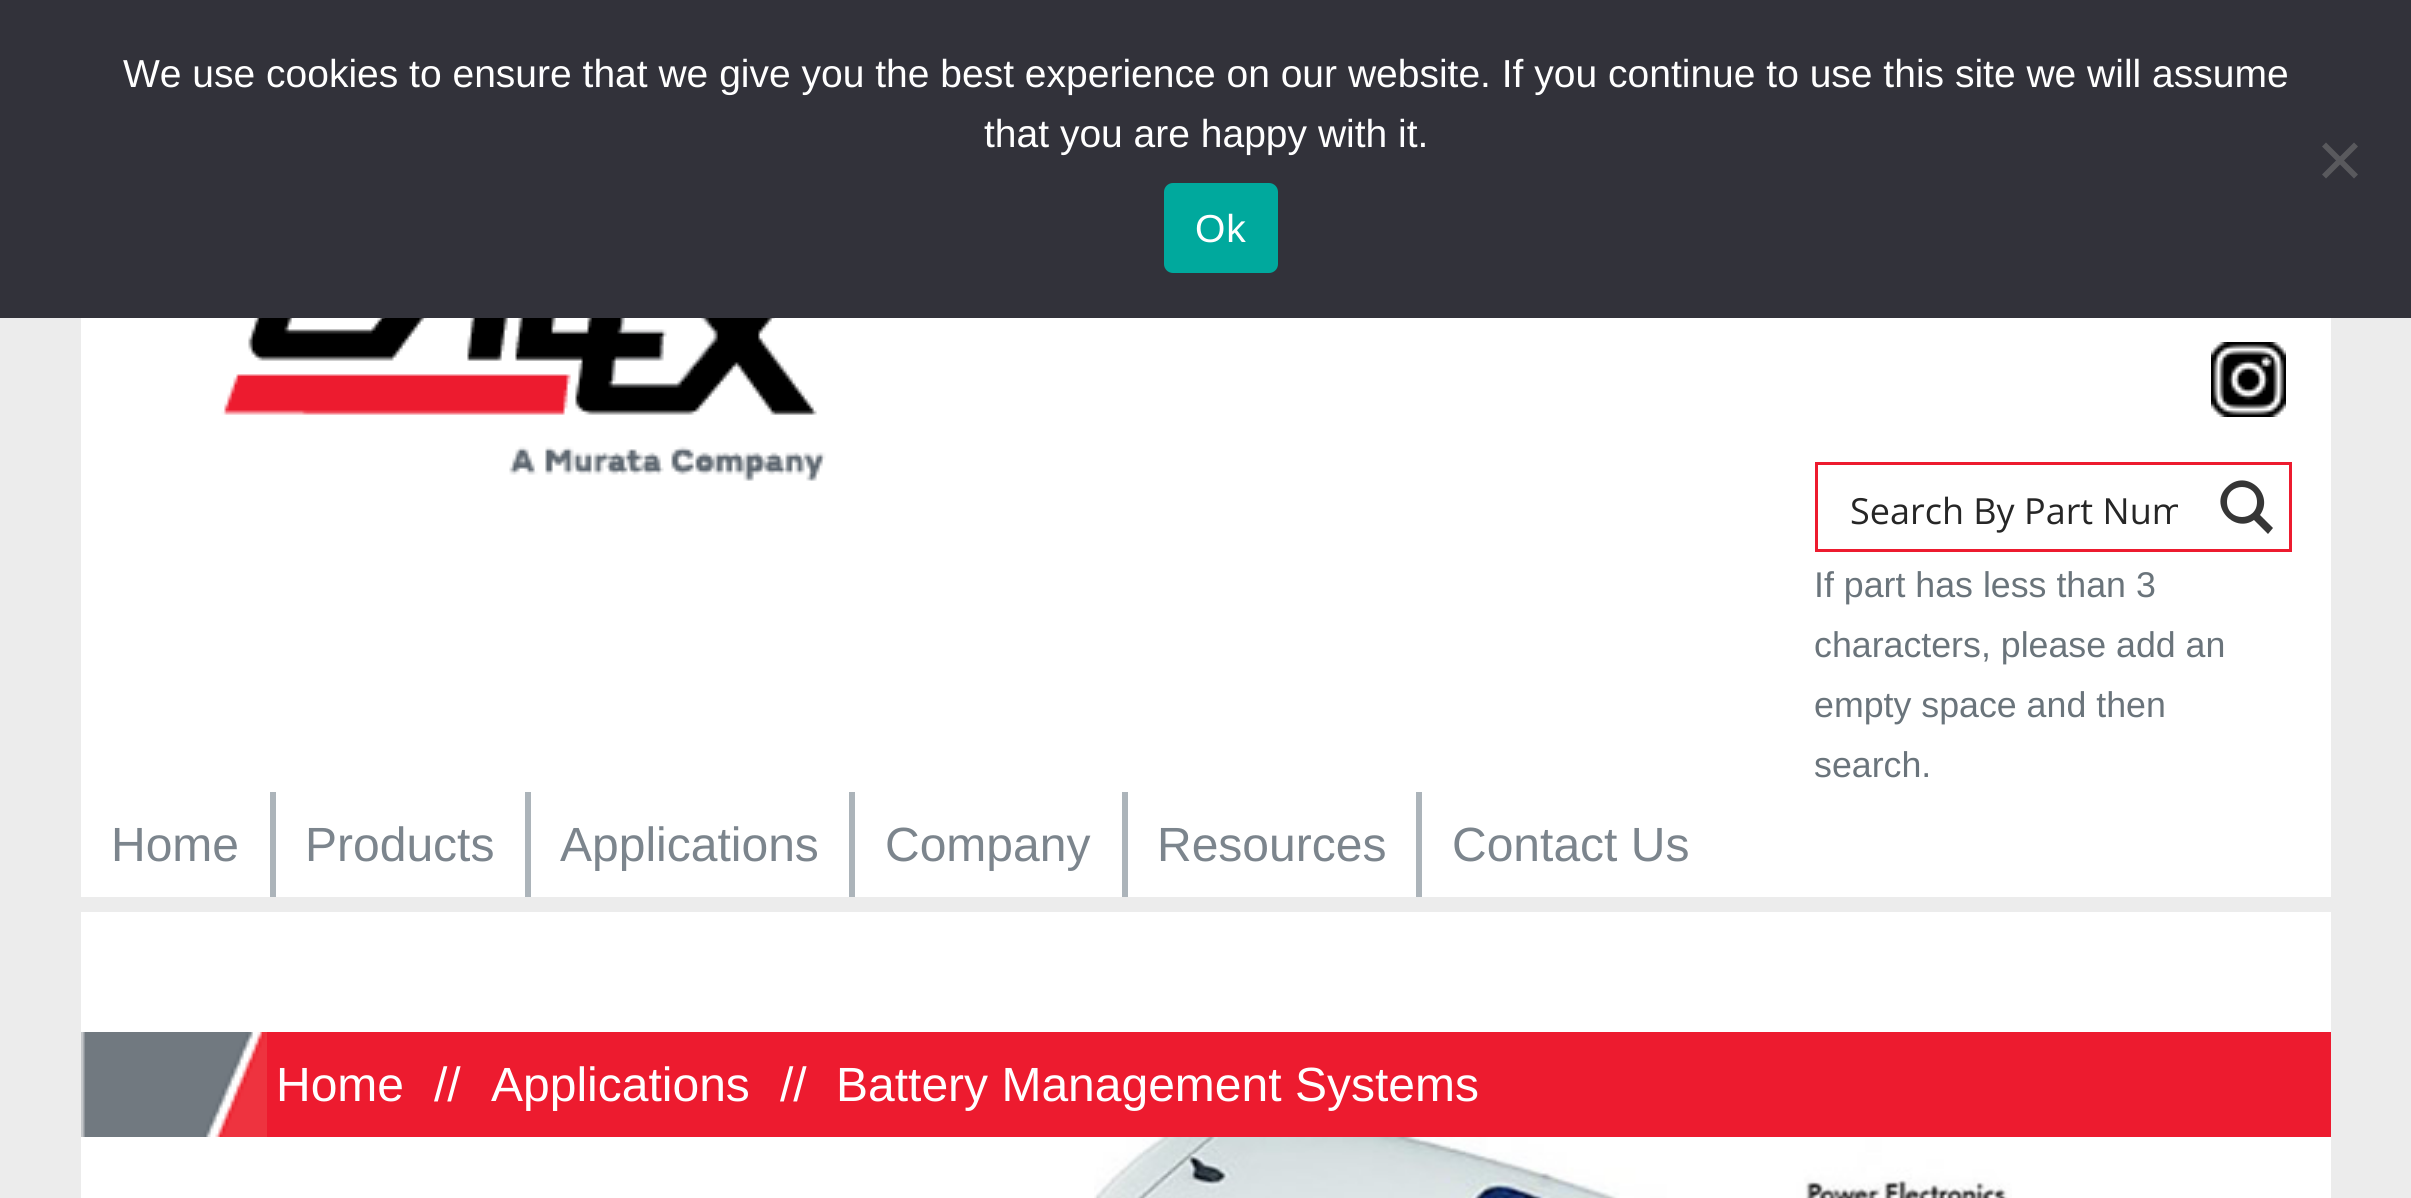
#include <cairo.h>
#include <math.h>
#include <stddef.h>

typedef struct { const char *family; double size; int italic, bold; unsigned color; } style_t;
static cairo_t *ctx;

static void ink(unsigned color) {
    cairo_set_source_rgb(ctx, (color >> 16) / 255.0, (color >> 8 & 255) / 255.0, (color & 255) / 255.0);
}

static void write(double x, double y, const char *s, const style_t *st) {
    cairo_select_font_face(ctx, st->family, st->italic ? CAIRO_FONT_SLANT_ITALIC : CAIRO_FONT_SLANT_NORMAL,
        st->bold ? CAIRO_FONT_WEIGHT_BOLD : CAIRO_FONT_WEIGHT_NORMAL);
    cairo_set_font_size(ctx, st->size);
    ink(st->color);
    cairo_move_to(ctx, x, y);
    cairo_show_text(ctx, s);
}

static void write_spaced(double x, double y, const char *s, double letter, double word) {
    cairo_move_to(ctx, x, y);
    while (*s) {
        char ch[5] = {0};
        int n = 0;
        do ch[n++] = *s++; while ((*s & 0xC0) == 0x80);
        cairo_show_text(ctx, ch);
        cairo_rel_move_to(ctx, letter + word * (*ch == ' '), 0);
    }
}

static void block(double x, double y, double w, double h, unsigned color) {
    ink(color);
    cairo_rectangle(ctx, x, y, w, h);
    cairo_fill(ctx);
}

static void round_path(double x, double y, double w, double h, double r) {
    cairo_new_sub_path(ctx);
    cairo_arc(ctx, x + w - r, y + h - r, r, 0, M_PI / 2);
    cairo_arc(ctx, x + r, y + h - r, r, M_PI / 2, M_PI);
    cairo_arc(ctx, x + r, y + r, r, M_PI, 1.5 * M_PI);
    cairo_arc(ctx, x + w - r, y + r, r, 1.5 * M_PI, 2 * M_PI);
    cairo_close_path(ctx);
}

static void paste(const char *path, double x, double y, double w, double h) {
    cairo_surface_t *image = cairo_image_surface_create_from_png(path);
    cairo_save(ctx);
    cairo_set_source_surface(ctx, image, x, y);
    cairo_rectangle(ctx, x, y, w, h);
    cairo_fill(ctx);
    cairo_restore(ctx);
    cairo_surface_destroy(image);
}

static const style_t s1 = {"Liberation Sans", 39, 0, 0, 0xffffff};
static const style_t s2 = {"Open Sans", 36, 0, 0, 0x262626};
static const style_t s3 = {"Liberation Sans", 35.75, 0, 0, 0x6a747b};
static const style_t s4 = {"Liberation Sans", 48, 0, 0, 0x7c858d};
static const style_t s5 = {"Liberation Sans", 48, 0, 0, 0xffffff};

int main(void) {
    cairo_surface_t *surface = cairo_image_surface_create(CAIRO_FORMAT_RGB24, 2411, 1198);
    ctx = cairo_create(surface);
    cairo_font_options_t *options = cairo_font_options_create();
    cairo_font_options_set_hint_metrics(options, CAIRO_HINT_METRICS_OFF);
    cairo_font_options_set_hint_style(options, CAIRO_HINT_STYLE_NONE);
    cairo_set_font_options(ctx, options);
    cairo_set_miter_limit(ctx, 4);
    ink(0xececec);
    cairo_paint(ctx);
    block(0, 0, 2411, 318, 0x32323a);
    write(123, 87, "We use cookies to ensure that we give you the best experience on our website. If you continue to use this site we will assume", &s1);
    write(984, 147, "that you are happy with it.", &s1);
    ink(0x59595d);
    cairo_new_path(ctx);
    cairo_move_to(ctx, 2354, 142.5);
    cairo_line_to(ctx, 2358, 146.5);
    cairo_line_to(ctx, 2326, 178.5);
    cairo_line_to(ctx, 2322, 174.5);
    cairo_close_path(ctx);
    cairo_fill(ctx);
    cairo_new_path(ctx);
    cairo_move_to(ctx, 2322, 146.5);
    cairo_line_to(ctx, 2326, 142.5);
    cairo_line_to(ctx, 2358, 174.5);
    cairo_line_to(ctx, 2354, 178.5);
    cairo_close_path(ctx);
    cairo_fill(ctx);
    ink(0x00a99d);
    round_path(1164, 183, 114, 90, 9);
    cairo_fill(ctx);
    ink(0xffffff);
    write_spaced(1195, 242, "Ok", 1, 0);
    block(81, 318, 2250, 579, 0xffffff);
    paste("pic1.png", 221, 318, 632, 163);
    paste("pic2.png", 2211, 342, 75, 75);
    cairo_rectangle(ctx, 1816.5, 463.5, 474, 87);
    ink(0xed1b2f);
    cairo_set_line_width(ctx, 3);
    cairo_stroke(ctx);
    cairo_save(ctx);
    cairo_rectangle(ctx, 1851, 486, 327, 51);
    cairo_clip(ctx);
    write(1850, 524, "Search By Part Num", &s2);
    cairo_restore(ctx);
    ink(0x363636);
    cairo_new_path(ctx);
    cairo_move_to(ctx, 2273, 528);
    cairo_line_to(ctx, 2260, 515);
    cairo_curve_to(ctx, 2275, 494, 2246, 468, 2227, 487);
    cairo_curve_to(ctx, 2208, 505, 2234, 534, 2254, 520);
    cairo_line_to(ctx, 2268, 534);
    cairo_close_path(ctx);
    cairo_move_to(ctx, 2227, 502);
    cairo_curve_to(ctx, 2227, 482, 2257, 482, 2257, 502);
    cairo_curve_to(ctx, 2257, 522, 2227, 522, 2227, 502);
    cairo_close_path(ctx);
    cairo_fill(ctx);
    write(1814, 597, "If part has less than 3", &s3);
    write(1814, 657, "characters, please add an", &s3);
    write(1814, 717, "empty space and then", &s3);
    write(1814, 777, "search.", &s3);
    block(270, 792, 6, 105, 0xacb4ba);
    write(111, 861, "Home", &s4);
    block(525, 792, 6, 105, 0xacb4ba);
    write(305, 861, "Products", &s4);
    block(849, 792, 6, 105, 0xacb4ba);
    write(560, 861, "Applications", &s4);
    block(1122, 792, 6, 105, 0xacb4ba);
    write(885, 861, "Company", &s4);
    block(1416, 792, 6, 105, 0xacb4ba);
    write(1157, 861, "Resources", &s4);
    write(1452, 861, "Contact Us", &s4);
    block(81, 912, 2250, 286, 0xffffff);
    block(267, 1032, 2064, 105, 0xed1b2f);
    paste("pic3.png", 81, 1032, 186, 105);
    write(276, 1101, "Home", &s5);
    write(434, 1101, "//", &s5);
    write(491, 1101, "Applications", &s5);
    write(780, 1101, "//", &s5);
    write(836, 1101, "Battery Management Systems", &s5);
    paste("pic4.png", 1094, 1137, 918, 61);
    cairo_surface_write_to_png(surface, "screenshot.png");
    cairo_font_options_destroy(options);
    cairo_destroy(ctx);
    cairo_surface_destroy(surface);
    return 0;
}
